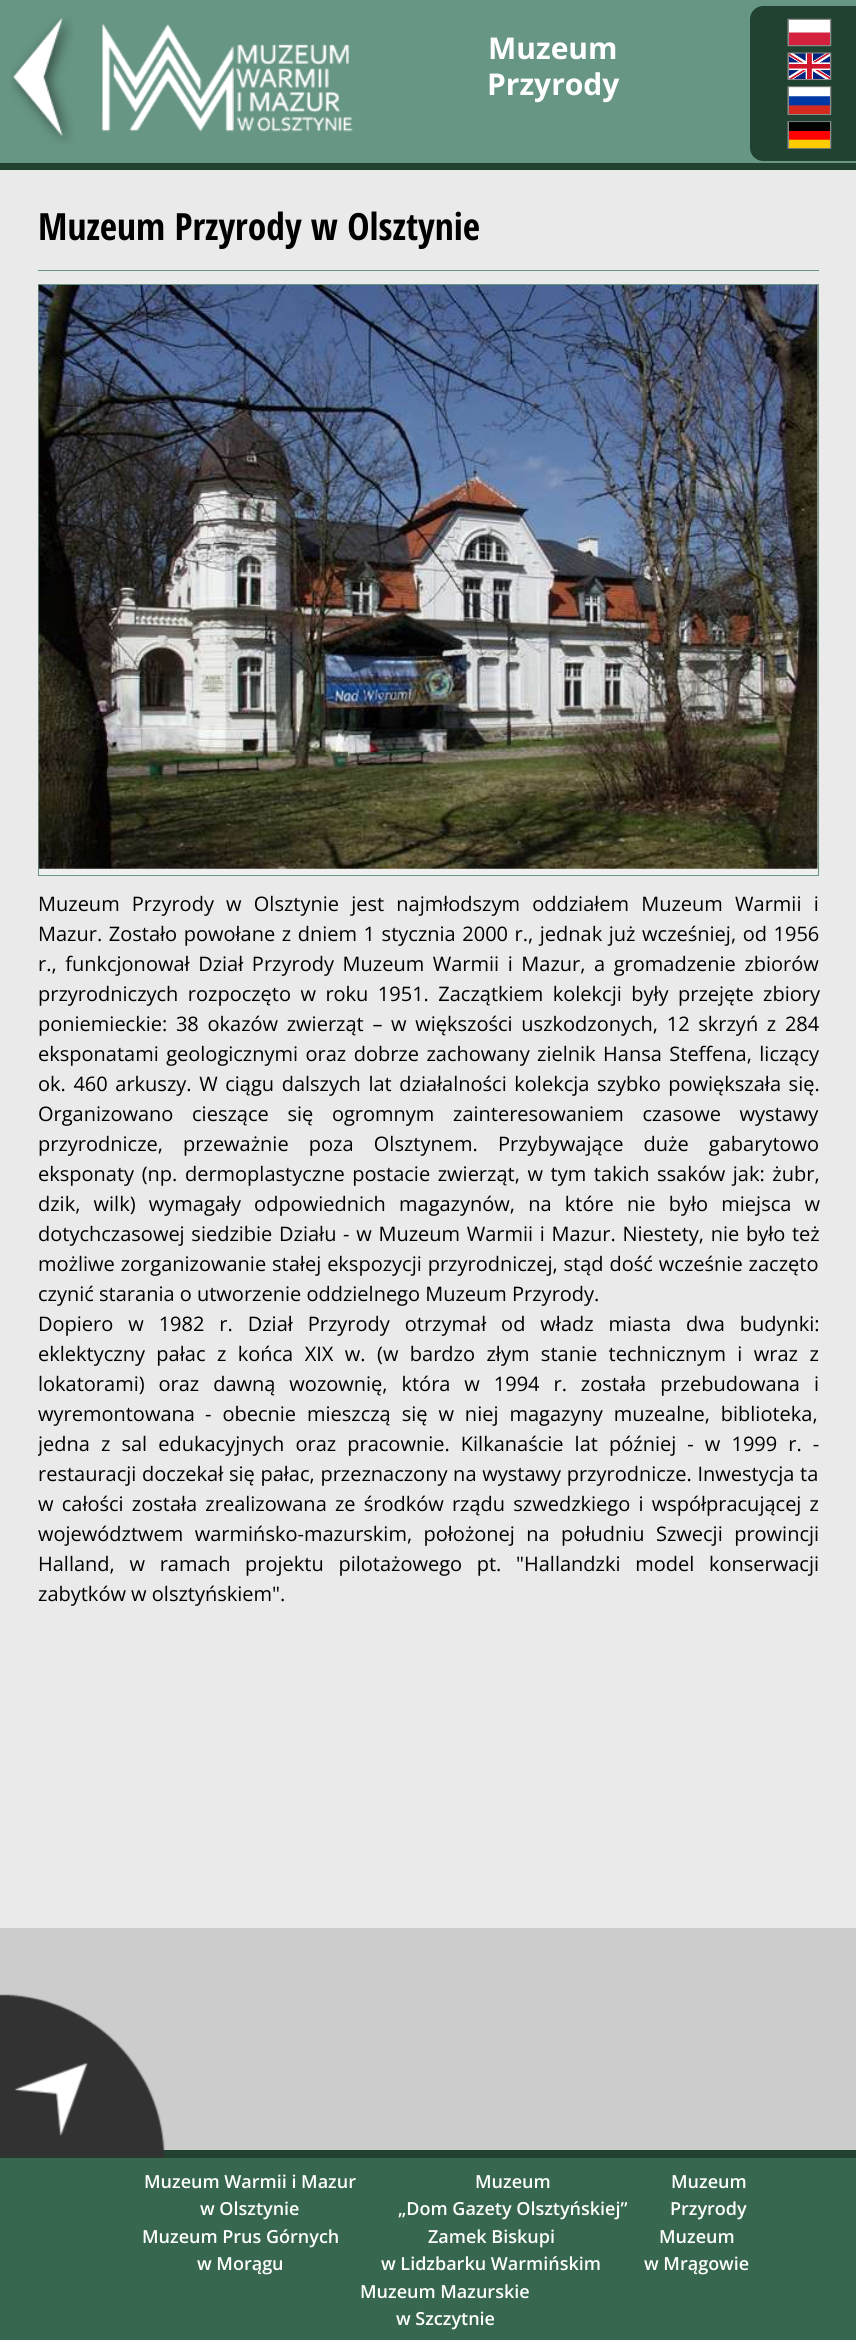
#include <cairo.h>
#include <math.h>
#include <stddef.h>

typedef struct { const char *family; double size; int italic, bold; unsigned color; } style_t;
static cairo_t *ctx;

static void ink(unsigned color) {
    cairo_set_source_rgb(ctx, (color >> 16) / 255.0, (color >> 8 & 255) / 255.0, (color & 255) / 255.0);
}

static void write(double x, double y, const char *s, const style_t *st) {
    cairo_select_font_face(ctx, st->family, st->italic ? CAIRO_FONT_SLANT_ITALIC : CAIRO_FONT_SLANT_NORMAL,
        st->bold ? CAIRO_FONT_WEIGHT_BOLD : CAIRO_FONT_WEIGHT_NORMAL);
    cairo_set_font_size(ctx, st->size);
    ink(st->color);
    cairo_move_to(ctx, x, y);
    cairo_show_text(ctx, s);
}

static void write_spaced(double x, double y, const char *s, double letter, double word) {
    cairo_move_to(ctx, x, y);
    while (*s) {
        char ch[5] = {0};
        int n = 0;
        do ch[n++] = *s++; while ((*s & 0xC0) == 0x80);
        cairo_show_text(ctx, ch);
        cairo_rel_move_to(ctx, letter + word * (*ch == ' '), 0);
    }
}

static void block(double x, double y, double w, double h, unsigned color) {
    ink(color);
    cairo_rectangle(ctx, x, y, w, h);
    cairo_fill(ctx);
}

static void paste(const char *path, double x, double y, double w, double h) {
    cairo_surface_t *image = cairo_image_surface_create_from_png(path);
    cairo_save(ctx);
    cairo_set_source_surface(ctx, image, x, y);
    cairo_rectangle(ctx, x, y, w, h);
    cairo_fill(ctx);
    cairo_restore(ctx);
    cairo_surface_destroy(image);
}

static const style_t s1 = {"Open Sans", 30, 0, 1, 0xffffff};
static const style_t s2 = {"Open Sans Condensed", 37.5, 0, 1, 0x000000};
static const style_t s3 = {"Open Sans", 20, 0, 0, 0x000000};
static const style_t s4 = {"Open Sans SemiBold", 18, 0, 0, 0xffffff};

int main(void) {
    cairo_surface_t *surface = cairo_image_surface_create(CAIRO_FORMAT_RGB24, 856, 2340);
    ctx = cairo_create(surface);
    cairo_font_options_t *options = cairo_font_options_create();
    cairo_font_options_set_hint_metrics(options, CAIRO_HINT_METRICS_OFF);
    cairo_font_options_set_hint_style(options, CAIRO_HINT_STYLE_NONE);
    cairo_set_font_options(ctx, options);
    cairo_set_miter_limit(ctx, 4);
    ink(0xcccccc);
    cairo_paint(ctx);
    block(0, 0, 856, 163, 0x679684);
    block(0, 163, 856, 7, 0x224231);
    paste("pic1.png", 10, 17, 63, 127);
    paste("pic2.png", 101, 23, 252, 109);
    write(488, 59, "Muzeum", &s1);
    write(487, 95, "Przyrody", &s1);
    ink(0x224231);
    cairo_new_path(ctx);
    cairo_move_to(ctx, 763, 6);
    cairo_line_to(ctx, 856, 6);
    cairo_line_to(ctx, 856, 161);
    cairo_line_to(ctx, 763, 161);
    cairo_curve_to(ctx, 756, 161, 750, 155, 750, 148);
    cairo_line_to(ctx, 750, 19);
    cairo_curve_to(ctx, 750, 12, 756, 6, 763, 6);
    cairo_close_path(ctx);
    cairo_fill(ctx);
    paste("pic3.png", 787, 18, 45, 29);
    paste("pic4.png", 787, 52, 45, 28);
    paste("pic5.png", 787, 86, 45, 29);
    paste("pic6.png", 787, 121, 45, 28);
    block(0, 170, 856, 1758, 0xeaeaea);
    write(38, 240, "Muzeum Przyrody w Olsztynie", &s2);
    block(38, 270, 781, 1, 0x679684);
    ink(0xefefef);
    cairo_rectangle(ctx, 38.5, 284.5, 780, 591);
    cairo_fill_preserve(ctx);
    ink(0x679684);
    cairo_set_line_width(ctx, 1);
    cairo_stroke(ctx);
    paste("pic7.png", 38, 285, 780, 584);
    cairo_select_font_face(ctx, "Open Sans", CAIRO_FONT_SLANT_NORMAL, CAIRO_FONT_WEIGHT_NORMAL);
    cairo_set_font_size(ctx, 20);
    ink(0x000000);
    write_spaced(38, 911, "Muzeum Przyrody w Olsztynie jest najmłodszym oddziałem Muzeum Warmii i", 0, 7);
    write_spaced(38, 941, "Mazur. Zostało powołane z dniem 1 stycznia 2000 r., jednak już wcześniej, od 1956", 0, 1.4);
    write_spaced(38, 971, "r., funkcjonował Dział Przyrody Muzeum Warmii i Mazur, a gromadzenie zbiorów", 0, 3.4);
    write_spaced(38, 1001, "przyrodniczych rozpoczęto w roku 1951. Zaczątkiem kolekcji były przejęte zbiory", 0, 4.25);
    write_spaced(38, 1031, "poniemieckie: 38 okazów zwierząt – w większości uszkodzonych, 12 skrzyń z 284", 0, 3.5);
    write_spaced(38, 1061, "eksponatami geologicznymi oraz dobrze zachowany zielnik Hansa Steffena, liczący", 0, 2.25);
    write_spaced(38, 1091, "ok. 460 arkuszy. W ciągu dalszych lat działalności kolekcja szybko powiększała się.", 0, 2.4);
    write_spaced(38, 1121, "Organizowano cieszące się ogromnym zainteresowaniem czasowe wystawy", 0, 13.5);
    write_spaced(38, 1151, "przyrodnicze, przeważnie poza Olsztynem. Przybywające duże gabarytowo", 0, 15);
    write_spaced(38, 1181, "eksponaty (np. dermoplastyczne postacie zwierząt, w tym takich ssaków jak: żubr,", 0, 2.4);
    write_spaced(38, 1211, "dzik, wilk) wymagały odpowiednich magazynów, na które nie było miejsca w", 0, 8);
    write_spaced(38, 1241, "dotychczasowej siedzibie Działu - w Muzeum Warmii i Mazur. Niestety, nie było też", 0, 1.5);
    write_spaced(38, 1271, "możliwe zorganizowanie stałej ekspozycji przyrodniczej, stąd dość wcześnie zaczęto", 0, 0.75);
    write(38, 1301, "czynić starania o utworzenie oddzielnego Muzeum Przyrody.", &s3);
    write_spaced(38, 1331, "Dopiero w 1982 r. Dział Przyrody otrzymał od władz miasta dwa budynki:", 0, 9.75);
    write_spaced(38, 1361, "eklektyczny pałac z końca XIX w. (w bardzo złym stanie technicznym i wraz z", 0, 6.25);
    write_spaced(38, 1391, "lokatorami) oraz dawną wozownię, która w 1994 r. została przebudowana i", 0, 8.75);
    write(38, 1421, "wyremontowana", &s3);
    write_spaced(205, 1421, "- obecnie mieszczą się w niej magazyny muzealne, biblioteka,", 0, 5.75);
    cairo_save(ctx);
    cairo_rectangle(ctx, 38, 284, 781, 1325);
    cairo_clip(ctx);
    write_spaced(38, 1451, "jedna z sal edukacyjnych oraz pracownie. Kilkanaście lat później - w 1999 r. -", 0, 5.9);
    cairo_restore(ctx);
    write_spaced(38, 1481, "restauracji doczekał się pałac, przeznaczony na wystawy przyrodnicze. Inwestycja ta", 0, 0.5);
    write_spaced(38, 1511, "w całości została zrealizowana ze środków rządu szwedzkiego i współpracującej z", 0, 3);
    write_spaced(38, 1541, "województwem warmińsko-mazurskim, położonej na południu Szwecji prowincji", 0, 6.25);
    write_spaced(38, 1571, "Halland, w ramach projektu pilotażowego pt. \"Hallandzki model konserwacji", 0, 9.5);
    write(38, 1601, "zabytków w olsztyńskiem\".", &s3);
    block(0, 2158, 856, 182, 0x37684f);
    block(0, 2150, 856, 8, 0x224231);
    paste("pic8.png", 0, 1994, 165, 164);
    write(144, 2188, "Muzeum Warmii i Mazur", &s4);
    write(200, 2215, "w Olsztynie", &s4);
    write(475, 2188, "Muzeum", &s4);
    write(398, 2215, "„Dom Gazety Olsztyńskiej”", &s4);
    write(671, 2188, "Muzeum", &s4);
    write(670, 2215, "Przyrody", &s4);
    write(142, 2243, "Muzeum Prus Górnych", &s4);
    write(197, 2270, "w Morągu", &s4);
    write(428, 2243, "Zamek Biskupi", &s4);
    write(381, 2270, "w Lidzbarku Warmińskim", &s4);
    write(659, 2243, "Muzeum", &s4);
    write(644, 2270, "w Mrągowie", &s4);
    write(360, 2298, "Muzeum Mazurskie", &s4);
    write(396, 2325, "w Szczytnie", &s4);
    cairo_surface_write_to_png(surface, "screenshot.png");
    cairo_font_options_destroy(options);
    cairo_destroy(ctx);
    cairo_surface_destroy(surface);
    return 0;
}
